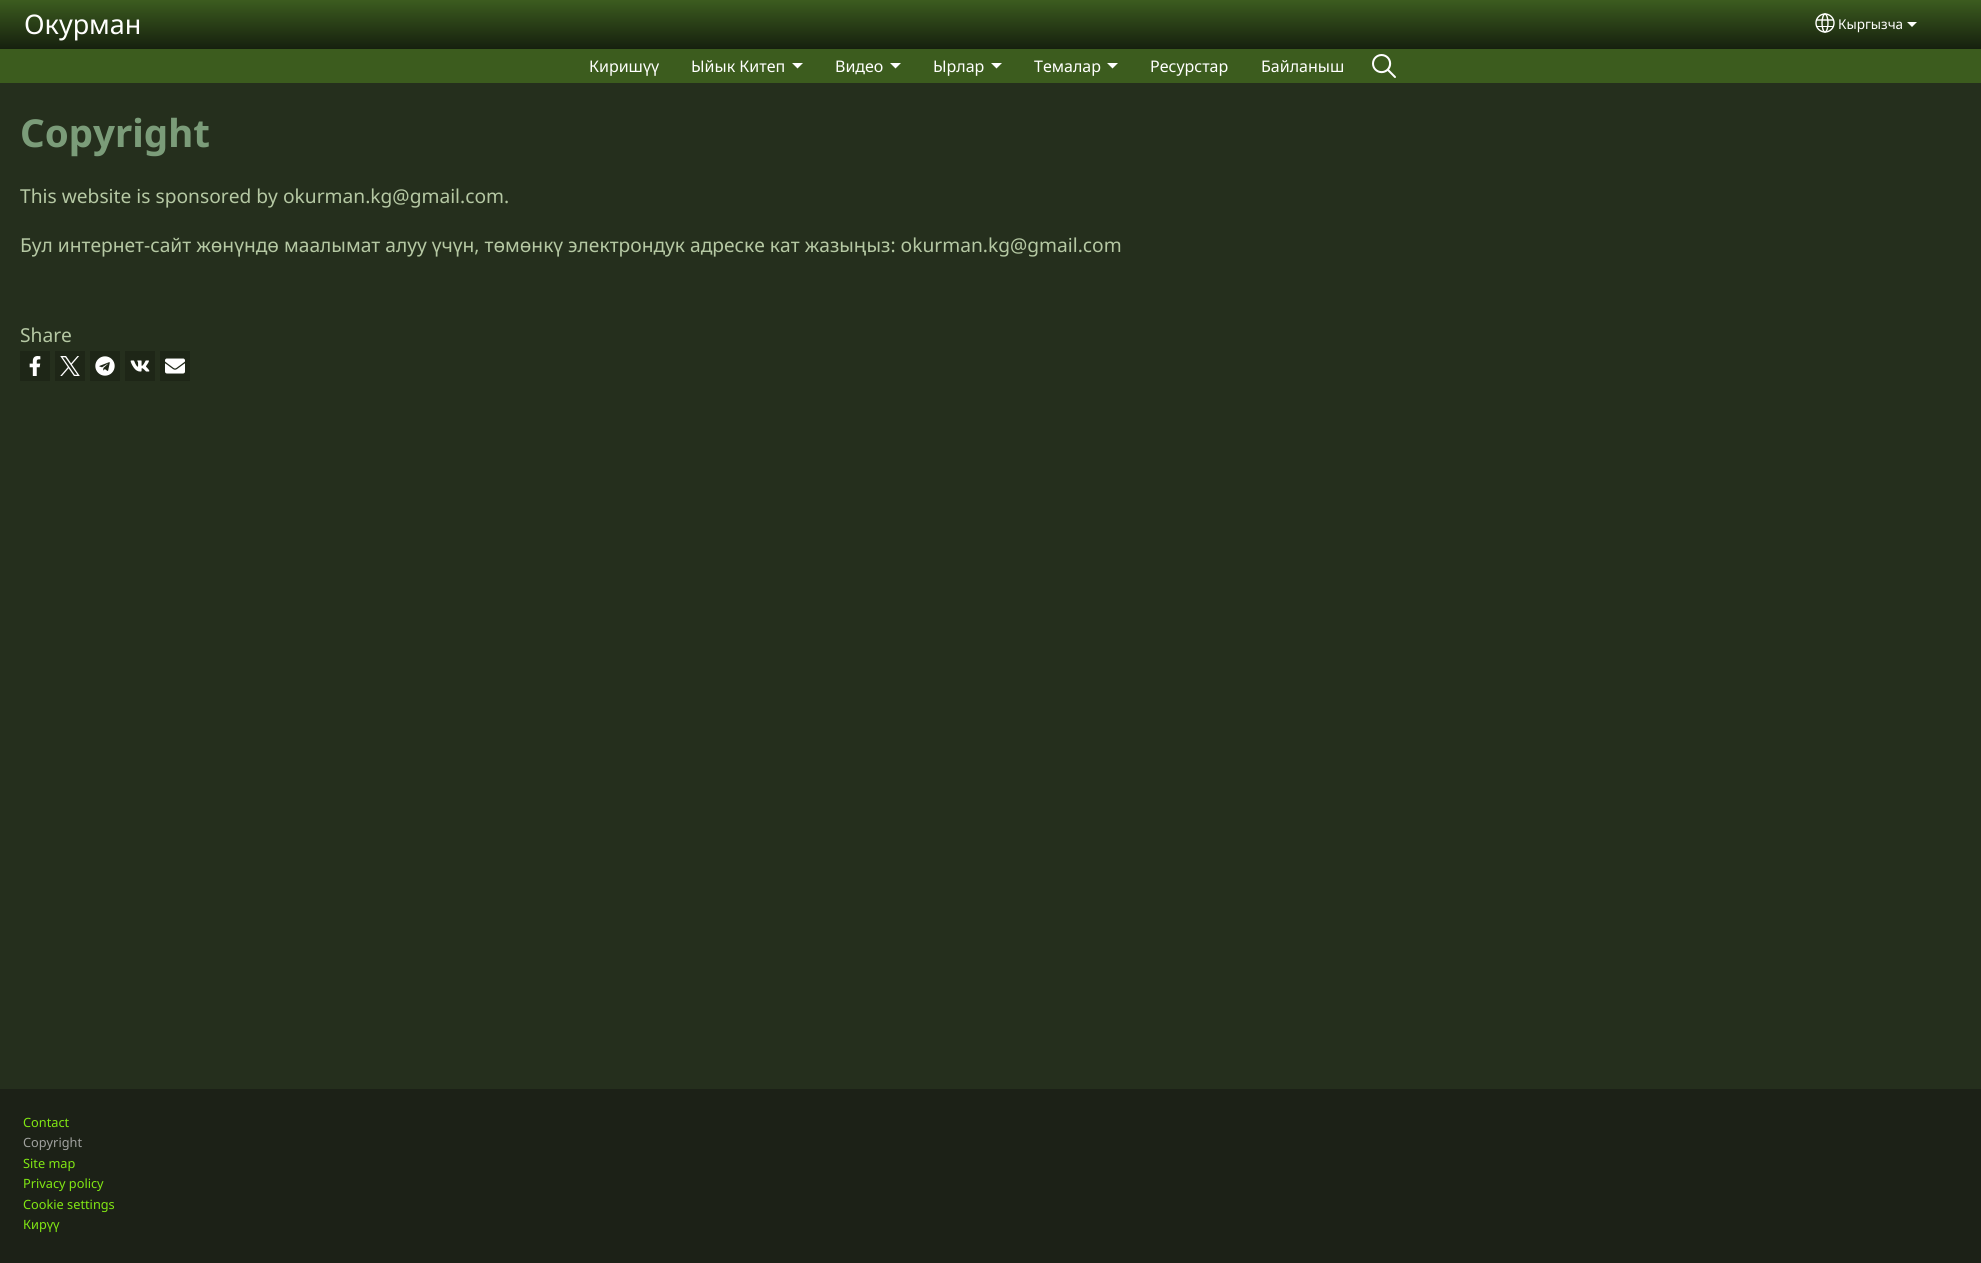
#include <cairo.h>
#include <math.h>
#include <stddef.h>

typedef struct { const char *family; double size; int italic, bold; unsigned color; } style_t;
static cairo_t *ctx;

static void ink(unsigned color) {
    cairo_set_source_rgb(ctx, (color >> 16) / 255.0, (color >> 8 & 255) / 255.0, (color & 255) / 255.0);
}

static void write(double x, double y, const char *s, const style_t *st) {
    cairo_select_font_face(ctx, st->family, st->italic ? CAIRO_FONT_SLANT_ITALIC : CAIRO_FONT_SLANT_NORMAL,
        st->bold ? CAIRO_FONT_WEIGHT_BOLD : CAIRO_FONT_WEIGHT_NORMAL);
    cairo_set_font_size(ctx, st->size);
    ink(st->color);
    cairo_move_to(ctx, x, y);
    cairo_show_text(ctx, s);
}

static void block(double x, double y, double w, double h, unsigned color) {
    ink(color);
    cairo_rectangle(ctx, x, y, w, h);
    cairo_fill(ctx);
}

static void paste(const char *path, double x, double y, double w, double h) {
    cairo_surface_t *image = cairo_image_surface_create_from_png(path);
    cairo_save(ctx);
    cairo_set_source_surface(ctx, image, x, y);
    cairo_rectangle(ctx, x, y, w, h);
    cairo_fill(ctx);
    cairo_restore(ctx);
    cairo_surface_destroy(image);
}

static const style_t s1 = {"Noto Sans", 27, 0, 0, 0xfffffe};
static const style_t s2 = {"Noto Sans", 13.5, 0, 0, 0xfffffe};
static const style_t s3 = {"Noto Sans", 16, 0, 0, 0xfffffe};
static const style_t s4 = {"Noto Sans", 38.5, 0, 1, 0x7b9c79};
static const style_t s5 = {"Noto Sans", 19.2, 0, 0, 0xb5c8a3};
static const style_t s6 = {"Noto Sans", 12.75, 0, 0, 0x81e713};
static const style_t s7 = {"Noto Sans", 12.75, 0, 0, 0xa0a19f};

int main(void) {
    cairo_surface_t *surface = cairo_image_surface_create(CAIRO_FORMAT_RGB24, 1981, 1263);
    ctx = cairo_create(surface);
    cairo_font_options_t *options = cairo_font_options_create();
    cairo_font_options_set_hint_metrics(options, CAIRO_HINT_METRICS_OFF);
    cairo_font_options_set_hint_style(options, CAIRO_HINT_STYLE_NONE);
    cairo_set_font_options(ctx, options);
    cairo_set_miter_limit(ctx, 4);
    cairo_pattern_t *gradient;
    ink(0x252f1d);
    cairo_paint(ctx);
    gradient = cairo_pattern_create_linear(991, 0, 991, 49);
    cairo_pattern_add_color_stop_rgba(gradient, 0, 0.235, 0.361, 0.122, 1);
    cairo_pattern_add_color_stop_rgba(gradient, 1, 0.086, 0.125, 0.055, 1);
    cairo_set_source(ctx, gradient);
    cairo_pattern_destroy(gradient);
    cairo_rectangle(ctx, 0, 0, 1981, 49);
    cairo_fill(ctx);
    write(24, 34, "Окурман", &s1);
    cairo_new_path(ctx);
    cairo_arc(ctx, 1825, 23, 9, 0, 2 * M_PI);
    cairo_set_line_width(ctx, 1.4);
    cairo_stroke(ctx);
    cairo_new_path(ctx);
    cairo_move_to(ctx, 1825, 14);
    cairo_curve_to(ctx, 1826.5, 14, 1828, 18, 1828, 23);
    cairo_curve_to(ctx, 1828, 28, 1826.5, 32, 1825, 32);
    cairo_curve_to(ctx, 1823.5, 32, 1822, 28, 1822, 23);
    cairo_curve_to(ctx, 1822, 18, 1823.5, 14, 1825, 14);
    cairo_close_path(ctx);
    cairo_stroke(ctx);
    cairo_new_path(ctx);
    cairo_move_to(ctx, 1816, 20);
    cairo_line_to(ctx, 1833.5, 20);
    cairo_stroke(ctx);
    block(1816, 26, 18, 1, 0xfffffe);
    write(1838, 29, "Кыргызча", &s2);
    cairo_new_path(ctx);
    cairo_move_to(ctx, 1907, 22);
    cairo_line_to(ctx, 1917, 22);
    cairo_line_to(ctx, 1912, 27);
    cairo_close_path(ctx);
    cairo_fill(ctx);
    block(0, 49, 1981, 34, 0x3c5c1e);
    write(589, 72, "Киришүү", &s3);
    write(691, 72, "Ыйык Китеп", &s3);
    ink(0xfeffff);
    cairo_new_path(ctx);
    cairo_move_to(ctx, 792, 63);
    cairo_line_to(ctx, 803, 63);
    cairo_line_to(ctx, 797.5, 68.5);
    cairo_close_path(ctx);
    cairo_fill(ctx);
    write(835, 72, "Видео", &s3);
    ink(0xfeffff);
    cairo_new_path(ctx);
    cairo_move_to(ctx, 890, 63);
    cairo_line_to(ctx, 901, 63);
    cairo_line_to(ctx, 895.5, 68.5);
    cairo_close_path(ctx);
    cairo_fill(ctx);
    write(933, 72, "Ырлар", &s3);
    ink(0xfeffff);
    cairo_new_path(ctx);
    cairo_move_to(ctx, 991, 63);
    cairo_line_to(ctx, 1002, 63);
    cairo_line_to(ctx, 996.5, 68.5);
    cairo_close_path(ctx);
    cairo_fill(ctx);
    write(1034, 72, "Темалар", &s3);
    ink(0xfeffff);
    cairo_new_path(ctx);
    cairo_move_to(ctx, 1107, 63);
    cairo_line_to(ctx, 1118, 63);
    cairo_line_to(ctx, 1112.5, 68.5);
    cairo_close_path(ctx);
    cairo_fill(ctx);
    write(1150, 72, "Ресурстар", &s3);
    write(1261, 72, "Байланыш", &s3);
    paste("pic1.png", 1372, 54, 24, 24);
    write(20, 147, "Copyright", &s4);
    write(20, 203, "This website is sponsored by okurman.kg@gmail.com.", &s5);
    write(20, 252, "Бул интернет-сайт жөнүндө маалымат алуу үчүн, төмөнкү электрондук адреске кат жазыңыз: okurman.kg@gmail.com", &s5);
    write(20, 342, "Share", &s5);
    block(20, 351, 30, 30, 0x1e2617);
    paste("pic2.png", 29, 356, 12, 20);
    block(55, 351, 30, 30, 0x1e2617);
    paste("pic3.png", 60, 356, 20, 20);
    block(90, 351, 30, 30, 0x1e2617);
    paste("pic4.png", 95, 356, 20, 20);
    block(125, 351, 30, 30, 0x1e2617);
    paste("pic5.png", 130, 360, 20, 12);
    block(160, 351, 30, 30, 0x1e2617);
    paste("pic6.png", 165, 358, 20, 16);
    block(0, 1089, 1981, 174, 0x1c2117);
    write(23, 1127, "Contact", &s6);
    write(23, 1147, "Copyright", &s7);
    write(23, 1168, "Site map", &s6);
    write(23, 1188, "Privacy policy", &s6);
    write(23, 1209, "Cookie settings", &s6);
    write(23, 1229, "Кирүү", &s6);
    cairo_surface_write_to_png(surface, "screenshot.png");
    cairo_font_options_destroy(options);
    cairo_destroy(ctx);
    cairo_surface_destroy(surface);
    return 0;
}
